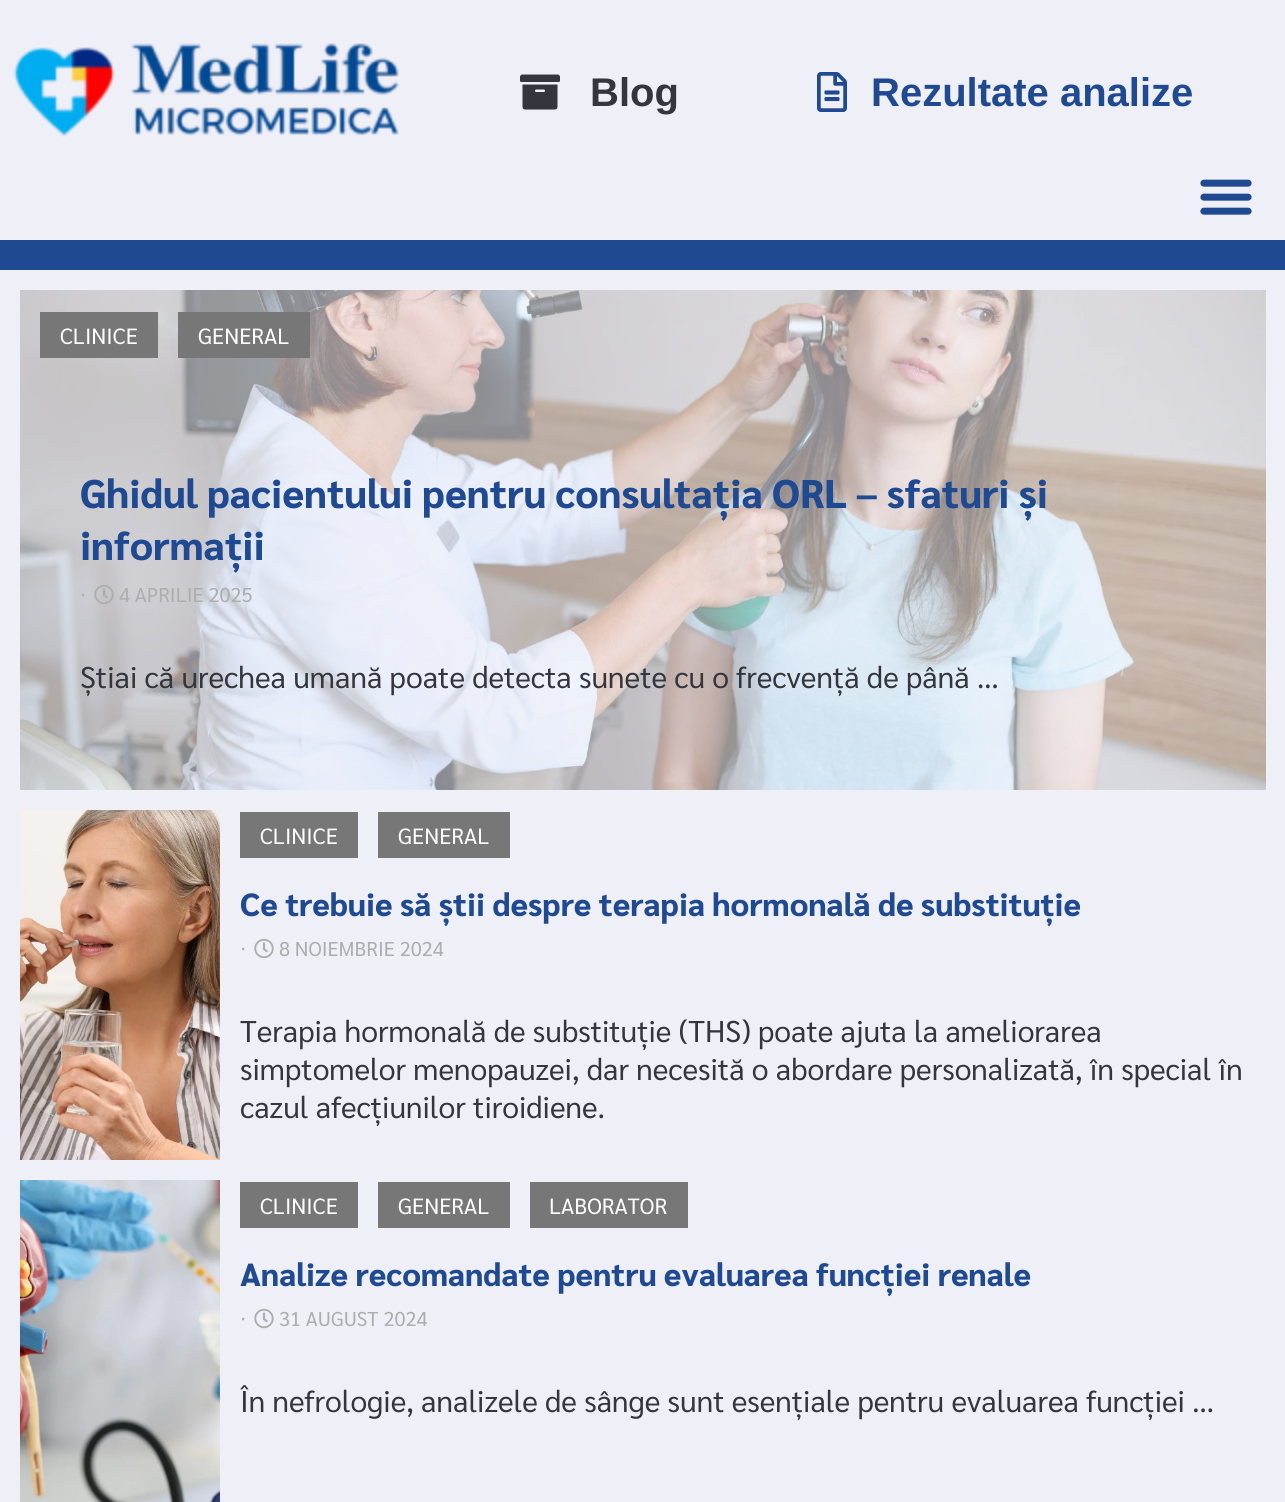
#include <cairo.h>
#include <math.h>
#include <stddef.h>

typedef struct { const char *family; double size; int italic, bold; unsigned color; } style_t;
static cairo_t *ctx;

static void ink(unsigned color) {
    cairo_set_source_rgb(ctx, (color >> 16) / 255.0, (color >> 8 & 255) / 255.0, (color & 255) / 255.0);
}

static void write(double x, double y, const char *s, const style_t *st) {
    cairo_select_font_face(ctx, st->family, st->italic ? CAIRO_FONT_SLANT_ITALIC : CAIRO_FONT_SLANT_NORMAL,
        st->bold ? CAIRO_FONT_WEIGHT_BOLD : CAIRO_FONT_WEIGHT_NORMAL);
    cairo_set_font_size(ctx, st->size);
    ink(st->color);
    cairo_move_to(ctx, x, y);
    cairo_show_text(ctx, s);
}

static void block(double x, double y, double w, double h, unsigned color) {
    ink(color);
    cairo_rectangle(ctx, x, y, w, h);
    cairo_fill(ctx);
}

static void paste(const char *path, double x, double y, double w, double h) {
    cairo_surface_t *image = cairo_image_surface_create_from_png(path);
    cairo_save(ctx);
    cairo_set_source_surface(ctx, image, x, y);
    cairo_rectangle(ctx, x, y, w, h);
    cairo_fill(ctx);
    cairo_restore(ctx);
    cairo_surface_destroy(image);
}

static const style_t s1 = {"Liberation Sans", 40, 0, 1, 0x34353d};
static const style_t s2 = {"Liberation Sans", 40, 0, 1, 0x1f4a91};
static const style_t s3 = {"Sarabun", 22, 0, 0, 0xffffff};
static const style_t s4 = {"Sarabun ExtraBold", 40, 0, 0, 0x1f4a91};
static const style_t s5 = {"DejaVu Sans", 20, 0, 0, 0xadadad};
static const style_t s6 = {"Sarabun", 20, 0, 0, 0xadadad};
static const style_t s7 = {"Sarabun", 30, 0, 0, 0x34353d};
static const style_t s8 = {"Sarabun ExtraBold", 32, 0, 0, 0x1f4a91};

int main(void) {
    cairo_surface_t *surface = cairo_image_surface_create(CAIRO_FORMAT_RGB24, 1285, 1502);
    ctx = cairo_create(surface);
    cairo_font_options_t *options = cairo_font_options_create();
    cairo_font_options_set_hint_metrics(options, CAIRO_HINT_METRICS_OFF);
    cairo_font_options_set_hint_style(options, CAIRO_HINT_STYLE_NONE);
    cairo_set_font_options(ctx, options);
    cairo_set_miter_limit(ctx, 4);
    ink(0xefeff8);
    cairo_paint(ctx);
    paste("pic1.png", 13, 43, 386, 94);
    paste("pic2.png", 520, 74, 40, 36);
    write(590, 106, "Blog", &s1);
    paste("pic3.png", 817, 72, 30, 40);
    write(871, 106, "Rezultate analize", &s2);
    paste("pic4.png", 1200, 179, 52, 36);
    block(0, 240, 1285, 30, 0x1f4a91);
    paste("pic5.png", 20, 290, 1246, 500);
    block(40, 312, 118, 46, 0x777777);
    write(60, 344, "CLINICE", &s3);
    block(178, 312, 132, 46, 0x777777);
    write(198, 344, "GENERAL", &s3);
    write(80, 508, "Ghidul pacientului pentru consultația ORL – sfaturi și", &s4);
    write(80, 560, "informații", &s4);
    write(80, 602, "⋅", &s5);
    paste("pic6.png", 94, 585, 20, 19);
    write(119, 602, "4 APRILIE 2025", &s6);
    write(80, 688, "Știai că urechea umană poate detecta sunete cu o frecvență de până …", &s7);
    paste("pic7.png", 20, 810, 200, 350);
    block(240, 812, 118, 46, 0x777777);
    write(260, 844, "CLINICE", &s3);
    block(378, 812, 132, 46, 0x777777);
    write(398, 844, "GENERAL", &s3);
    write(240, 916, "Ce trebuie să știi despre terapia hormonală de substituție", &s8);
    write(240, 956, "⋅", &s5);
    paste("pic8.png", 254, 938, 20, 21);
    write(279, 956, "8 NOIEMBRIE 2024", &s6);
    write(240, 1042, "Terapia hormonală de substituție (THS) poate ajuta la ameliorarea", &s7);
    write(240, 1080, "simptomelor menopauzei, dar necesită o abordare personalizată, în special în", &s7);
    write(240, 1118, "cazul afecțiunilor tiroidiene.", &s7);
    paste("pic9.png", 20, 1180, 200, 322);
    block(240, 1182, 118, 46, 0x777777);
    write(260, 1214, "CLINICE", &s3);
    block(378, 1182, 132, 46, 0x777777);
    write(398, 1214, "GENERAL", &s3);
    block(530, 1182, 158, 46, 0x777777);
    write(549, 1214, "LABORATOR", &s3);
    write(240, 1286, "Analize recomandate pentru evaluarea funcției renale", &s8);
    write(240, 1326, "⋅", &s5);
    paste("pic8.png", 254, 1308, 20, 21);
    write(279, 1326, "31 AUGUST 2024", &s6);
    write(240, 1412, "În nefrologie, analizele de sânge sunt esențiale pentru evaluarea funcției …", &s7);
    cairo_surface_write_to_png(surface, "screenshot.png");
    cairo_font_options_destroy(options);
    cairo_destroy(ctx);
    cairo_surface_destroy(surface);
    return 0;
}
